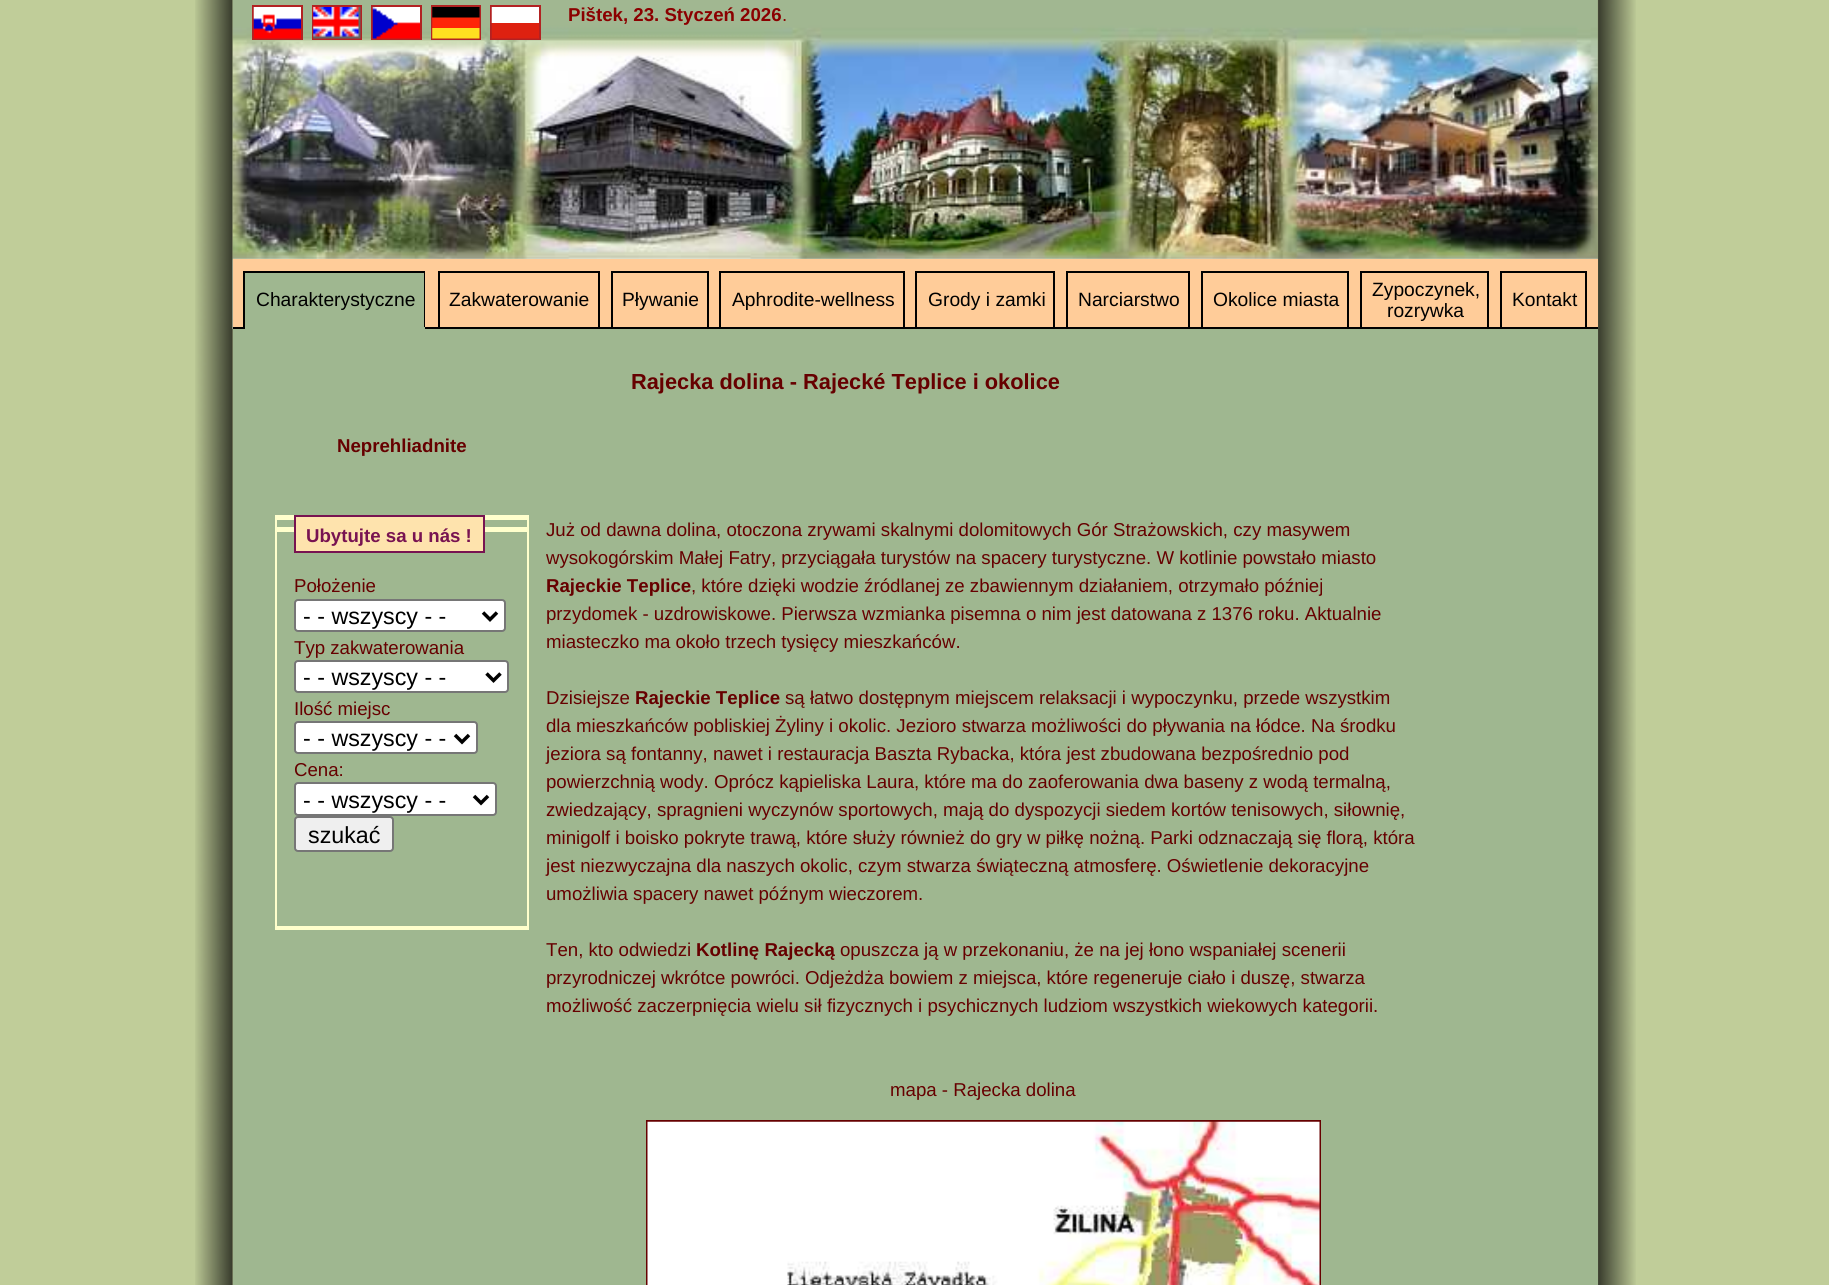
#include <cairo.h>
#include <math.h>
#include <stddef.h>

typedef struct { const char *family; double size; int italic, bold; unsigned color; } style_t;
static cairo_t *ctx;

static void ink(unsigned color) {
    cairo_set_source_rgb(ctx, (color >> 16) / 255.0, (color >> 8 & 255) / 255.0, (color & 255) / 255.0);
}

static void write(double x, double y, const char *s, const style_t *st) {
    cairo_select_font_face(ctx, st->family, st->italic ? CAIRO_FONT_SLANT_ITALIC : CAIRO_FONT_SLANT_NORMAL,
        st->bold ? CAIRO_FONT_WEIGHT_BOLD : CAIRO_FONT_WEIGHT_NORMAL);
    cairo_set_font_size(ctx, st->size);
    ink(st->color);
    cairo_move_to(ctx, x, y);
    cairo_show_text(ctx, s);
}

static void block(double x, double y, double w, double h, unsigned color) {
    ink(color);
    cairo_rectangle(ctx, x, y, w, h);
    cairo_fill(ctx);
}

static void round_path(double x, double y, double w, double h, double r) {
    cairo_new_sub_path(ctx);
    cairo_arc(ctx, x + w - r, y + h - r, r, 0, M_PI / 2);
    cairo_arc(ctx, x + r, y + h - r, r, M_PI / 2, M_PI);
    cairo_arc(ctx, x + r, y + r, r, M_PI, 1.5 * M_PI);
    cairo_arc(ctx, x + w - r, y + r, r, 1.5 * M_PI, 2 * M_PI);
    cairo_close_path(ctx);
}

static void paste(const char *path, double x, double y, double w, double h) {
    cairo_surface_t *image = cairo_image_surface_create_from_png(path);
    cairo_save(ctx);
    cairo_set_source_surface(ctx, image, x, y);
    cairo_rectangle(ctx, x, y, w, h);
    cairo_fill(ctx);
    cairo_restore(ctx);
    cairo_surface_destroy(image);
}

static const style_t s1 = {"Liberation Sans", 18.65, 0, 1, 0x8b0000};
static const style_t s2 = {"Liberation Sans", 18.65, 0, 0, 0x8b0000};
static const style_t s3 = {"Liberation Sans", 19.25, 0, 0, 0x000000};
static const style_t s4 = {"Liberation Sans", 21.8, 0, 1, 0x660000};
static const style_t s5 = {"Liberation Sans", 18.65, 0, 1, 0x660000};
static const style_t s6 = {"Liberation Sans", 18.65, 0, 1, 0x781351};
static const style_t s7 = {"Liberation Sans", 18.65, 0, 0, 0x660000};
static const style_t s8 = {"Liberation Sans", 23.25, 0, 0, 0x000000};

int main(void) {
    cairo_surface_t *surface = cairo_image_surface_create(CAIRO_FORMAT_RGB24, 1829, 1285);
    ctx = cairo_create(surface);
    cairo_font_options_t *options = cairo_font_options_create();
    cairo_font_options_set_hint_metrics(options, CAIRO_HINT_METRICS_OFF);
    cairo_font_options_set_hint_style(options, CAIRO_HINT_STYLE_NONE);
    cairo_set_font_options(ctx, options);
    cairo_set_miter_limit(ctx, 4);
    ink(0xc0cd99);
    cairo_paint(ctx);
    paste("pic1.png", 195, 0, 1441, 1285);
    paste("pic2.png", 232, 0, 1366, 329);
    cairo_rectangle(ctx, 253, 6, 49, 33);
    ink(0xb22222);
    cairo_stroke(ctx);
    cairo_rectangle(ctx, 313, 6, 48, 33);
    cairo_stroke(ctx);
    cairo_rectangle(ctx, 372, 6, 49, 33);
    cairo_stroke(ctx);
    cairo_rectangle(ctx, 432, 6, 48, 33);
    cairo_stroke(ctx);
    cairo_rectangle(ctx, 491, 6, 49, 33);
    cairo_stroke(ctx);
    paste("pic3.png", 253, 7, 48, 32);
    paste("pic4.png", 313, 7, 48, 32);
    paste("pic5.png", 372, 7, 48, 32);
    paste("pic6.png", 432, 7, 48, 32);
    paste("pic7.png", 491, 7, 48, 32);
    write(568, 21, "Pištek, 23. Styczeń 2026", &s1);
    write(782, 21, ".", &s2);
    block(233, 259, 1365, 68, 0xffcc99);
    block(245, 273, 179, 54, 0x9fb790);
    block(243, 271, 182, 2, 0x000000);
    block(424, 271, 1, 58, 0x000000);
    block(243, 327, 182, 2, 0x9fb790);
    block(243, 271, 2, 58, 0x000000);
    write(256, 306, "Charakterystyczne", &s3);
    cairo_rectangle(ctx, 439, 272, 160, 56);
    cairo_stroke(ctx);
    write(449, 306, "Zakwaterowanie", &s3);
    cairo_rectangle(ctx, 612, 272, 96, 56);
    cairo_stroke(ctx);
    write(622, 306, "Pływanie", &s3);
    cairo_rectangle(ctx, 720, 272, 184, 56);
    cairo_stroke(ctx);
    write(732, 306, "Aphrodite-wellness", &s3);
    cairo_rectangle(ctx, 916, 272, 138, 56);
    cairo_stroke(ctx);
    write(928, 306, "Grody i zamki", &s3);
    cairo_rectangle(ctx, 1067, 272, 122, 56);
    cairo_stroke(ctx);
    write(1078, 306, "Narciarstwo", &s3);
    cairo_rectangle(ctx, 1202, 272, 146, 56);
    cairo_stroke(ctx);
    write(1213, 306, "Okolice miasta", &s3);
    cairo_rectangle(ctx, 1361, 272, 127, 56);
    cairo_stroke(ctx);
    write(1372, 296, "Zypoczynek,", &s3);
    write(1387, 317, "rozrywka", &s3);
    cairo_rectangle(ctx, 1501, 272, 85, 56);
    cairo_stroke(ctx);
    write(1512, 306, "Kontakt", &s3);
    block(233, 327, 10, 2, 0x000000);
    block(425, 327, 13, 2, 0x000000);
    block(600, 327, 11, 2, 0x000000);
    block(709, 327, 10, 2, 0x000000);
    block(905, 327, 10, 2, 0x000000);
    block(1055, 327, 11, 2, 0x000000);
    block(1190, 327, 11, 2, 0x000000);
    block(1349, 327, 11, 2, 0x000000);
    block(1489, 327, 11, 2, 0x000000);
    block(1587, 327, 11, 2, 0x000000);
    block(233, 329, 1365, 956, 0x9fb790);
    write(631, 389, "Rajecka dolina - Rajecké Teplice i okolice", &s4);
    write(337, 452, "Neprehliadnite", &s5);
    block(275, 515, 254, 5, 0xffffcc);
    block(275, 527, 254, 5, 0xffffcc);
    block(527, 515, 2, 414, 0xffffcc);
    block(275, 926, 254, 4, 0xffffcc);
    block(275, 515, 2, 414, 0xffffcc);
    ink(0xfee3ad);
    cairo_rectangle(ctx, 295, 516, 189, 36);
    cairo_fill_preserve(ctx);
    ink(0x781351);
    cairo_stroke(ctx);
    write(306, 542, "Ubytujte sa u nás !", &s6);
    write(294, 592, "Położenie", &s7);
    ink(0xffffff);
    round_path(295, 600, 210, 31, 3);
    cairo_fill_preserve(ctx);
    ink(0x767676);
    cairo_stroke(ctx);
    cairo_new_path(ctx);
    cairo_move_to(ctx, 483, 612.5);
    cairo_line_to(ctx, 490, 619.5);
    cairo_line_to(ctx, 497, 612.5);
    ink(0x000000);
    cairo_set_line_width(ctx, 3.5);
    cairo_stroke(ctx);
    write(303, 624, "- - wszyscy - -", &s8);
    write(294, 654, "Typ zakwaterowania", &s7);
    ink(0xffffff);
    round_path(295, 661, 213, 31, 3);
    cairo_fill_preserve(ctx);
    ink(0x767676);
    cairo_set_line_width(ctx, 2);
    cairo_stroke(ctx);
    cairo_new_path(ctx);
    cairo_move_to(ctx, 486.5, 673.5);
    cairo_line_to(ctx, 493.5, 680.5);
    cairo_line_to(ctx, 500.5, 673.5);
    ink(0x000000);
    cairo_set_line_width(ctx, 3.5);
    cairo_stroke(ctx);
    write(303, 685, "- - wszyscy - -", &s8);
    write(294, 715, "Ilość miejsc", &s7);
    ink(0xffffff);
    round_path(295, 722, 182, 31, 3);
    cairo_fill_preserve(ctx);
    ink(0x767676);
    cairo_set_line_width(ctx, 2);
    cairo_stroke(ctx);
    cairo_new_path(ctx);
    cairo_move_to(ctx, 455, 735);
    cairo_line_to(ctx, 462, 742);
    cairo_line_to(ctx, 469, 735);
    ink(0x000000);
    cairo_set_line_width(ctx, 3.5);
    cairo_stroke(ctx);
    write(303, 746, "- - wszyscy - -", &s8);
    write(294, 776, "Cena:", &s7);
    ink(0xffffff);
    round_path(295, 783, 201, 32, 3);
    cairo_fill_preserve(ctx);
    ink(0x767676);
    cairo_set_line_width(ctx, 2);
    cairo_stroke(ctx);
    cairo_new_path(ctx);
    cairo_move_to(ctx, 474, 796);
    cairo_line_to(ctx, 481, 803);
    cairo_line_to(ctx, 488, 796);
    ink(0x000000);
    cairo_set_line_width(ctx, 3.5);
    cairo_stroke(ctx);
    write(303, 808, "- - wszyscy - -", &s8);
    ink(0xefefef);
    round_path(295, 817, 98, 34, 3);
    cairo_fill_preserve(ctx);
    ink(0x767676);
    cairo_set_line_width(ctx, 2);
    cairo_stroke(ctx);
    write(308, 843, "szukać", &s8);
    write(546, 536, "Już od dawna dolina, otoczona zrywami skalnymi dolomitowych Gór Strażowskich, czy masywem", &s7);
    write(546, 564, "wysokogórskim Małej Fatry, przyciągała turystów na spacery turystyczne. W kotlinie powstało miasto", &s7);
    write(546, 592, "Rajeckie Teplice", &s5);
    write(691, 592, ", które dzięki wodzie źródlanej ze zbawiennym działaniem, otrzymało później", &s7);
    write(546, 620, "przydomek - uzdrowiskowe. Pierwsza wzmianka pisemna o nim jest datowana z 1376 roku. Aktualnie", &s7);
    write(546, 648, "miasteczko ma około trzech tysięcy mieszkańców.", &s7);
    write(546, 704, "Dzisiejsze", &s7);
    write(635, 704, "Rajeckie Teplice", &s5);
    write(785, 704, "są łatwo dostępnym miejscem relaksacji i wypoczynku, przede wszystkim", &s7);
    write(546, 732, "dla mieszkańców pobliskiej Żyliny i okolic. Jezioro stwarza możliwości do pływania na łódce. Na środku", &s7);
    write(546, 760, "jeziora są fontanny, nawet i restauracja Baszta Rybacka, która jest zbudowana bezpośrednio pod", &s7);
    write(546, 788, "powierzchnią wody. Oprócz kąpieliska Laura, które ma do zaoferowania dwa baseny z wodą termalną,", &s7);
    write(546, 816, "zwiedzający, spragnieni wyczynów sportowych, mają do dyspozycji siedem kortów tenisowych, siłownię,", &s7);
    write(546, 844, "minigolf i boisko pokryte trawą, które służy również do gry w piłkę nożną. Parki odznaczają się florą, która", &s7);
    write(546, 872, "jest niezwyczajna dla naszych okolic, czym stwarza świąteczną atmosferę. Oświetlenie dekoracyjne", &s7);
    write(546, 900, "umożliwia spacery nawet późnym wieczorem.", &s7);
    write(546, 956, "Ten, kto odwiedzi", &s7);
    write(696, 956, "Kotlinę Rajecką", &s5);
    write(840, 956, "opuszcza ją w przekonaniu, że na jej łono wspaniałej scenerii", &s7);
    write(546, 984, "przyrodniczej wkrótce powróci. Odjeżdża bowiem z miejsca, które regeneruje ciało i duszę, stwarza", &s7);
    write(546, 1012, "możliwość zaczerpnięcia wielu sił fizycznych i psychicznych ludziom wszystkich wiekowych kategorii.", &s7);
    write(890, 1096, "mapa - Rajecka dolina", &s7);
    cairo_rectangle(ctx, 647, 1121, 673, 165);
    cairo_stroke(ctx);
    paste("pic8.png", 647, 1121, 673, 164);
    cairo_surface_write_to_png(surface, "screenshot.png");
    cairo_font_options_destroy(options);
    cairo_destroy(ctx);
    cairo_surface_destroy(surface);
    return 0;
}
